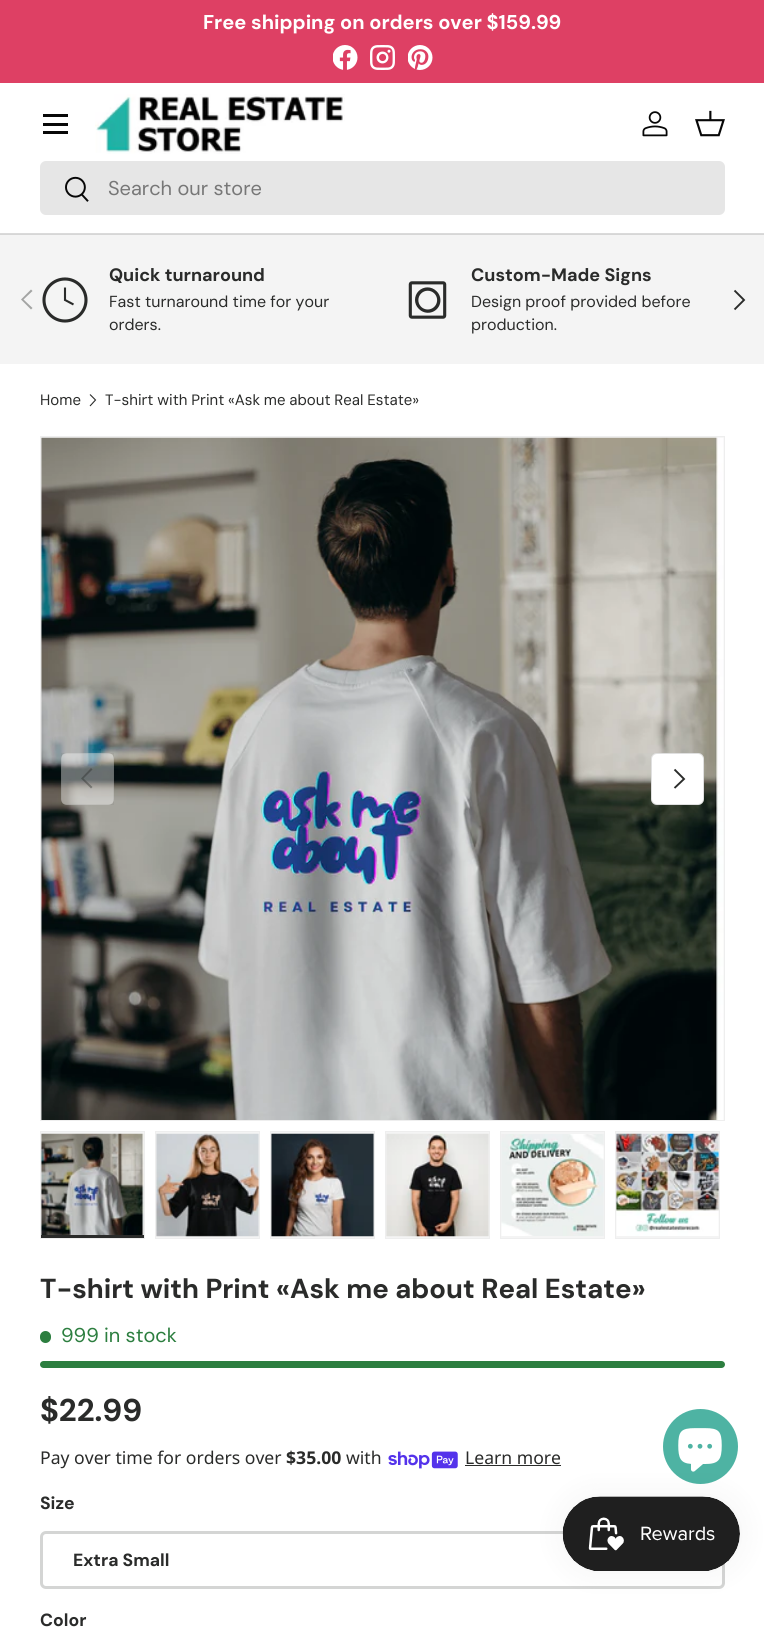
#include <cairo.h>
#include <math.h>
#include <stddef.h>

typedef struct { const char *family; double size; int italic, bold; unsigned color; } style_t;
static cairo_t *ctx;

static void ink(unsigned color) {
    cairo_set_source_rgb(ctx, (color >> 16) / 255.0, (color >> 8 & 255) / 255.0, (color & 255) / 255.0);
}

static void write(double x, double y, const char *s, const style_t *st) {
    cairo_select_font_face(ctx, st->family, st->italic ? CAIRO_FONT_SLANT_ITALIC : CAIRO_FONT_SLANT_NORMAL,
        st->bold ? CAIRO_FONT_WEIGHT_BOLD : CAIRO_FONT_WEIGHT_NORMAL);
    cairo_set_font_size(ctx, st->size);
    ink(st->color);
    cairo_move_to(ctx, x, y);
    cairo_show_text(ctx, s);
}

static void write_spaced(double x, double y, const char *s, double letter, double word) {
    cairo_move_to(ctx, x, y);
    while (*s) {
        char ch[5] = {0};
        int n = 0;
        do ch[n++] = *s++; while ((*s & 0xC0) == 0x80);
        cairo_show_text(ctx, ch);
        cairo_rel_move_to(ctx, letter + word * (*ch == ' '), 0);
    }
}

static void block(double x, double y, double w, double h, unsigned color) {
    ink(color);
    cairo_rectangle(ctx, x, y, w, h);
    cairo_fill(ctx);
}

static void round_path(double x, double y, double w, double h, double r) {
    cairo_new_sub_path(ctx);
    cairo_arc(ctx, x + w - r, y + h - r, r, 0, M_PI / 2);
    cairo_arc(ctx, x + r, y + h - r, r, M_PI / 2, M_PI);
    cairo_arc(ctx, x + r, y + r, r, M_PI, 1.5 * M_PI);
    cairo_arc(ctx, x + w - r, y + r, r, 1.5 * M_PI, 2 * M_PI);
    cairo_close_path(ctx);
}

static void blur_box(double x, double y, double w, double h, double r, double blur, double alpha) {
    cairo_push_group_with_content(ctx, CAIRO_CONTENT_ALPHA);
    cairo_set_operator(ctx, CAIRO_OPERATOR_SOURCE);
    for (int i = 15; i >= -15 && fmin(w, h) + blur * i / 3 > 0; i -= 2) {
        double e = blur * i / 6;
        cairo_set_source_rgba(ctx, 0, 0, 0, alpha * erfc((i - 1) / 8.5) / 2);
        round_path(x - e, y - e, w + 2 * e, h + 2 * e, fmax(0, fmin(r + e + blur * .6, fmin(w, h) / 2 + e)));
        cairo_fill(ctx);
    }
    cairo_pattern_t *soft = cairo_pop_group(ctx);
    cairo_mask(ctx, soft);
    cairo_pattern_destroy(soft);
}

static void paste(const char *path, double x, double y, double w, double h) {
    cairo_surface_t *image = cairo_image_surface_create_from_png(path);
    cairo_save(ctx);
    cairo_set_source_surface(ctx, image, x, y);
    cairo_rectangle(ctx, x, y, w, h);
    cairo_fill(ctx);
    cairo_restore(ctx);
    cairo_surface_destroy(image);
}

static const style_t s1 = {"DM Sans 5", 20, 0, 1, 0xffffff};
static const style_t s2 = {"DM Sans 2", 20, 0, 0, 0x777777};
static const style_t s3 = {"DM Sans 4", 18, 0, 1, 0x2a2b2a};
static const style_t s4 = {"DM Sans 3", 16, 0, 0, 0x2a2b2a};
static const style_t s5 = {"DM Sans", 15, 0, 0, 0x2a2b2a};
static const style_t s6 = {"DM Sans", 27.5, 0, 1, 0x2a2b2a};
static const style_t s7 = {"DM Sans 2", 20, 0, 0, 0x2c7e3f};
static const style_t s8 = {"DM Sans 2", 31.5, 0, 1, 0x2a2b2a};
static const style_t s9 = {"Noto Sans", 17.6, 0, 0, 0x2a2b2a};
static const style_t s10 = {"Noto Sans", 17.6, 0, 1, 0x2a2b2a};
static const style_t s11 = {"DM Sans 3", 17.6, 0, 1, 0x2a2b2a};

int main(void) {
    cairo_surface_t *surface = cairo_image_surface_create(CAIRO_FORMAT_RGB24, 764, 1633);
    ctx = cairo_create(surface);
    cairo_font_options_t *options = cairo_font_options_create();
    cairo_font_options_set_hint_metrics(options, CAIRO_HINT_METRICS_OFF);
    cairo_font_options_set_hint_style(options, CAIRO_HINT_STYLE_NONE);
    cairo_set_font_options(ctx, options);
    cairo_set_miter_limit(ctx, 4);
    ink(0xffffff);
    cairo_paint(ctx);
    block(0, 0, 764, 83, 0xde4064);
    write(203, 29, "Free shipping on orders over $159.99", &s1);
    paste("pic1.png", 333, 45, 25, 25);
    paste("pic2.png", 370, 45, 25, 25);
    paste("pic3.png", 408, 45, 25, 25);
    block(0, 233, 764, 1, 0xdadada);
    block(43, 114, 25, 3, 0x070707);
    block(43, 131, 25, 3, 0x070707);
    block(43, 123, 25, 3, 0x070707);
    paste("pic4.png", 95, 94, 250, 60);
    paste("pic5.png", 642, 111, 26, 26);
    paste("pic6.png", 695, 110, 30, 27);
    ink(0xe6e6e6);
    round_path(40, 161, 685, 54, 6);
    cairo_fill(ctx);
    paste("pic7.png", 65, 176, 24, 26);
    write(108, 195, "Search our store", &s2);
    block(0, 235, 764, 129, 0xf4f4f4);
    block(0, 234, 764, 1, 0xd6d6d6);
    cairo_new_path(ctx);
    cairo_arc(ctx, 65, 300, 21, 0, 2 * M_PI);
    ink(0x2a2b2a);
    cairo_set_line_width(ctx, 3.1);
    cairo_stroke(ctx);
    cairo_new_path(ctx);
    cairo_move_to(ctx, 65, 287.5);
    cairo_line_to(ctx, 65, 300);
    cairo_line_to(ctx, 73.5, 304.5);
    cairo_set_line_width(ctx, 2.1);
    cairo_stroke(ctx);
    write(109, 281, "Quick turnaround", &s3);
    write(109, 307, "Fast turnaround time for your", &s4);
    write(109, 330, "orders.", &s4);
    paste("pic8.png", 408, 281, 39, 38);
    write(471, 281, "Custom-Made Signs", &s3);
    write(471, 307, "Design proof provided before", &s4);
    write(471, 330, "production.", &s4);
    ink(0xa3a4a3);
    cairo_new_path(ctx);
    cairo_move_to(ctx, 21, 299.5);
    cairo_line_to(ctx, 31, 289.5);
    cairo_line_to(ctx, 32.5, 291);
    cairo_line_to(ctx, 23.5, 299.5);
    cairo_line_to(ctx, 32.5, 308);
    cairo_line_to(ctx, 31, 309.5);
    cairo_close_path(ctx);
    cairo_fill(ctx);
    cairo_new_path(ctx);
    cairo_move_to(ctx, 734.5, 290.5);
    cairo_line_to(ctx, 744, 300);
    cairo_line_to(ctx, 734.5, 309.5);
    ink(0x2a2b2a);
    cairo_set_line_width(ctx, 1.9);
    cairo_stroke(ctx);
    write(40, 405, "Home", &s5);
    cairo_new_path(ctx);
    cairo_move_to(ctx, 90, 394.5);
    cairo_line_to(ctx, 95.5, 400);
    cairo_line_to(ctx, 90, 406);
    cairo_set_line_width(ctx, 1.1);
    cairo_stroke(ctx);
    write_spaced(105, 405, "T-shirt with Print «Ask me about Real Estate»", 0, -0.25);
    ink(0xf4f4f4);
    cairo_rectangle(ctx, 40.5, 436.5, 684, 684);
    cairo_fill_preserve(ctx);
    ink(0xeeeeee);
    cairo_set_line_width(ctx, 1);
    cairo_stroke(ctx);
    paste("pic9.png", 41, 437, 683, 683);
    cairo_set_source_rgba(ctx, 1, 1, 1, 0.4);
    round_path(61, 753, 53, 52, 6);
    cairo_fill(ctx);
    cairo_rectangle(ctx, 61.5, 753.5, 52, 51);
    cairo_set_source_rgba(ctx, 0.165, 0.169, 0.165, 0.06);
    cairo_stroke(ctx);
    cairo_set_source_rgba(ctx, 0.165, 0.169, 0.165, 0.4);
    cairo_new_path(ctx);
    cairo_move_to(ctx, 81, 778.5);
    cairo_line_to(ctx, 91, 768);
    cairo_line_to(ctx, 92.5, 769.5);
    cairo_line_to(ctx, 83.5, 778.5);
    cairo_line_to(ctx, 92.5, 787);
    cairo_line_to(ctx, 91, 788.5);
    cairo_close_path(ctx);
    cairo_fill(ctx);
    ink(0xffffff);
    round_path(651, 753, 53, 52, 6);
    cairo_fill(ctx);
    round_path(651.5, 753.5, 52, 51, 5.5);
    cairo_set_source_rgba(ctx, 0.165, 0.169, 0.165, 0.15);
    cairo_stroke(ctx);
    cairo_new_path(ctx);
    cairo_move_to(ctx, 674.5, 769.5);
    cairo_line_to(ctx, 684, 779);
    cairo_line_to(ctx, 674.5, 788);
    ink(0x2a2b2a);
    cairo_set_line_width(ctx, 1.9);
    cairo_stroke(ctx);
    block(41, 1132, 103, 103, 0xf4f4f4);
    cairo_rectangle(ctx, 40.5, 1131.5, 104, 107);
    ink(0xeeeeee);
    cairo_set_line_width(ctx, 1);
    cairo_stroke(ctx);
    paste("pic10.png", 41, 1133, 103, 102);
    block(41, 1235, 103, 3, 0x2a2b2a);
    ink(0xf4f4f4);
    cairo_rectangle(ctx, 155.5, 1131.5, 104, 107);
    cairo_fill_preserve(ctx);
    ink(0xeeeeee);
    cairo_stroke(ctx);
    paste("pic11.png", 156, 1133, 103, 104);
    ink(0xf4f4f4);
    cairo_rectangle(ctx, 270.5, 1131.5, 104, 107);
    cairo_fill_preserve(ctx);
    ink(0xeeeeee);
    cairo_stroke(ctx);
    paste("pic12.png", 271, 1133, 103, 104);
    ink(0xf4f4f4);
    cairo_rectangle(ctx, 385.5, 1131.5, 104, 107);
    cairo_fill_preserve(ctx);
    ink(0xeeeeee);
    cairo_stroke(ctx);
    paste("pic13.png", 386, 1133, 103, 104);
    ink(0xf4f4f4);
    cairo_rectangle(ctx, 500.5, 1131.5, 104, 107);
    cairo_fill_preserve(ctx);
    ink(0xeeeeee);
    cairo_stroke(ctx);
    paste("pic14.png", 501, 1134, 103, 102);
    ink(0xf4f4f4);
    cairo_rectangle(ctx, 615.5, 1131.5, 104, 107);
    cairo_fill_preserve(ctx);
    ink(0xeeeeee);
    cairo_stroke(ctx);
    paste("pic15.png", 616, 1133, 103, 103);
    write(40, 1298, "T-shirt with Print «Ask me about Real Estate»", &s6);
    ink(0x2c7e3f);
    round_path(40, 1331, 11, 12, 5.5);
    cairo_fill(ctx);
    write(61, 1342, "999 in stock", &s7);
    round_path(40, 1361, 685, 7, 3.5);
    cairo_fill(ctx);
    write(40, 1421, "$22.99", &s8);
    write(40, 1464, "Pay over time for orders over", &s9);
    write(286, 1464, "$35.00", &s10);
    write(346, 1464, "with", &s9);
    paste("pic16.png", 388, 1451, 70, 18);
    write(465, 1464, "Learn more", &s9);
    block(465, 1465, 96, 1, 0x2a2b2a);
    write(40, 1509, "Size", &s11);
    round_path(41.5, 1532.5, 682, 55, 4.5);
    ink(0xd4d5d4);
    cairo_set_line_width(ctx, 3);
    cairo_stroke(ctx);
    write(73, 1566, "Extra Small", &s11);
    write(40, 1626, "Color", &s11);
    ink(0x4eb3a3);
    cairo_new_path(ctx);
    cairo_arc(ctx, 700.5, 1446.5, 37.5, 0, 2 * M_PI);
    cairo_fill(ctx);
    paste("pic17.png", 678, 1428, 44, 44);
    ink(0x000000);
    blur_box(563, 1496, 177, 75, 37.5, 15.5, 0.05);
    paste("pic18.png", 562, 1496, 178, 75);
    cairo_surface_write_to_png(surface, "screenshot.png");
    cairo_font_options_destroy(options);
    cairo_destroy(ctx);
    cairo_surface_destroy(surface);
    return 0;
}
